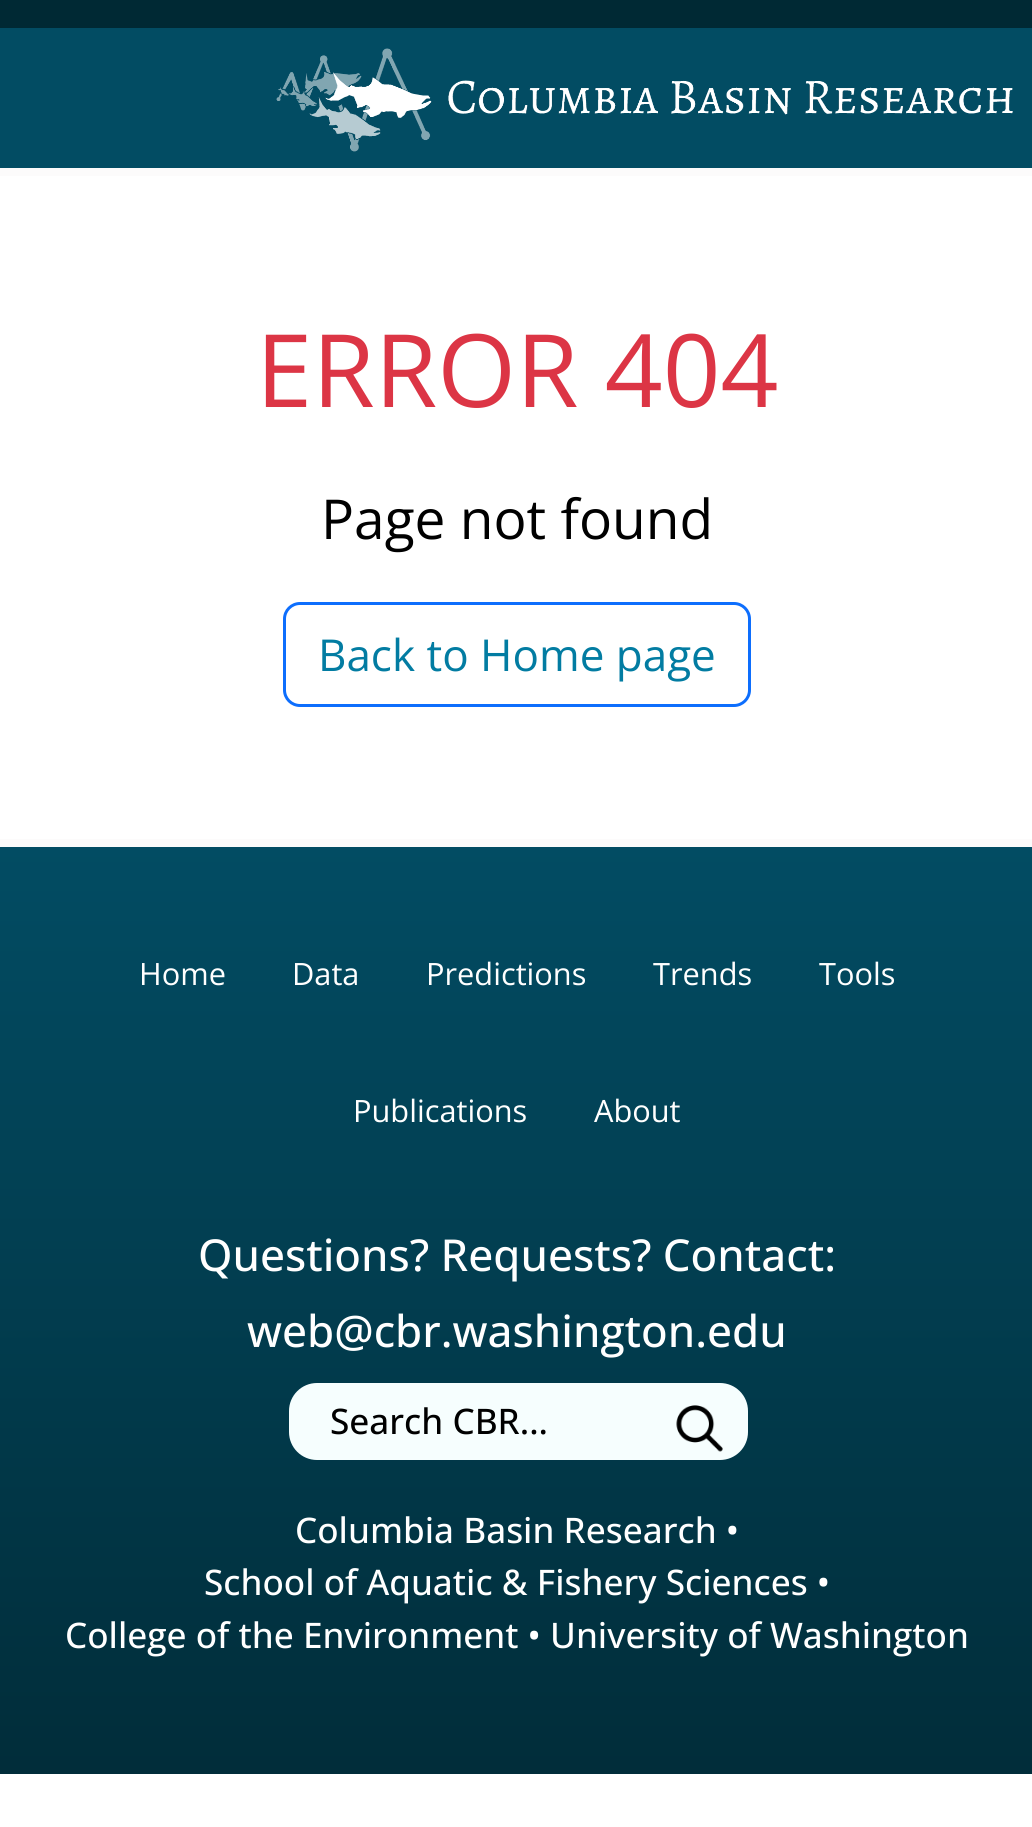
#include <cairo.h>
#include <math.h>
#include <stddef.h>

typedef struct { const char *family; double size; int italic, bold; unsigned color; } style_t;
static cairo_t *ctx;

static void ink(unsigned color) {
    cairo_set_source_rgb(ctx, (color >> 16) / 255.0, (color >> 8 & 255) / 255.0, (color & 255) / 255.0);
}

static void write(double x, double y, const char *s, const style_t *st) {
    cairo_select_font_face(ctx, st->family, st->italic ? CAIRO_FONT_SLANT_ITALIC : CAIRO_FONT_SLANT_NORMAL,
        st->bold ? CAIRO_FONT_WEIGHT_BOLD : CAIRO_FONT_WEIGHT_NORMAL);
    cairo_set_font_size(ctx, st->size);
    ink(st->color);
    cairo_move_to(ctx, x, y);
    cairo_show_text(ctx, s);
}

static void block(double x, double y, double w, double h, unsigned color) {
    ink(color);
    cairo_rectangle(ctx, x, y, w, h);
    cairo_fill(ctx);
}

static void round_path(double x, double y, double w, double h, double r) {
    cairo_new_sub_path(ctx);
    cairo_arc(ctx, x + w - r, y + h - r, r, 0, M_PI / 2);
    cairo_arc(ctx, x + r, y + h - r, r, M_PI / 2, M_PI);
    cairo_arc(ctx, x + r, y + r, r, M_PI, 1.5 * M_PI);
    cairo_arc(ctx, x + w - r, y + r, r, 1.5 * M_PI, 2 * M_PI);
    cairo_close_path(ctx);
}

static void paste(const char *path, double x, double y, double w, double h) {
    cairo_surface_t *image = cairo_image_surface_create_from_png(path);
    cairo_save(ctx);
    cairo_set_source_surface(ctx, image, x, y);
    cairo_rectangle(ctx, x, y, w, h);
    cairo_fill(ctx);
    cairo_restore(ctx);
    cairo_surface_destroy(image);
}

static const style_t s1 = {"Open Sans", 101.25, 0, 0, 0xdc3545};
static const style_t s2 = {"Open Sans", 55, 0, 0, 0x000000};
static const style_t s3 = {"Open Sans", 44, 0, 0, 0x027ca2};
static const style_t s4 = {"Open Sans", 30.75, 0, 0, 0xffffff};
static const style_t s5 = {"Open Sans Medium", 44, 0, 0, 0xffffff};
static const style_t s6 = {"Open Sans Medium", 35.2, 0, 0, 0x000000};
static const style_t s7 = {"Open Sans Medium", 35.2, 0, 0, 0xffffff};

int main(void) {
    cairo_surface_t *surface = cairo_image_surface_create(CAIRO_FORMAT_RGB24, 1032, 1827);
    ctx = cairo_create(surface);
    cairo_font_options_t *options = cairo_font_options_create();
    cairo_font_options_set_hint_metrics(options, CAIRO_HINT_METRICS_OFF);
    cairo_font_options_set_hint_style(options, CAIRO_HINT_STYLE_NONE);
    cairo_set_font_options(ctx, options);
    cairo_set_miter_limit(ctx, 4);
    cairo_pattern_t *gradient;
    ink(0xffffff);
    cairo_paint(ctx);
    block(0, 28, 1032, 140, 0x024c63);
    block(0, 0, 1032, 28, 0x002934);
    block(0, 168, 1032, 8, 0xfcfbfb);
    paste("pic1.png", 276, 48, 737, 104);
    block(0, 839, 1032, 8, 0xfcfbfb);
    write(256, 407, "ERROR 404", &s1);
    write(321, 539, "Page not found", &s2);
    round_path(284.5, 603.5, 465, 102, 15.5);
    ink(0x0d6efd);
    cairo_set_line_width(ctx, 3);
    cairo_stroke(ctx);
    write(318, 671, "Back to Home page", &s3);
    gradient = cairo_pattern_create_linear(517, 847, 517, 1774);
    cairo_pattern_add_color_stop_rgba(gradient, 0, 0.008, 0.298, 0.388, 1);
    cairo_pattern_add_color_stop_rgba(gradient, 1, 0.004, 0.176, 0.227, 1);
    cairo_set_source(ctx, gradient);
    cairo_pattern_destroy(gradient);
    cairo_rectangle(ctx, 0, 847, 1032, 927);
    cairo_fill(ctx);
    write(139, 985, "Home", &s4);
    write(292, 985, "Data", &s4);
    write(426, 985, "Predictions", &s4);
    write(653, 985, "Trends", &s4);
    write(819, 985, "Tools", &s4);
    write(353, 1122, "Publications", &s4);
    write(594, 1122, "About", &s4);
    write(198, 1271, "Questions? Requests? Contact:", &s5);
    write(247, 1347, "web@cbr.washington.edu", &s5);
    ink(0xf6fefe);
    round_path(289, 1383, 459, 77, 28);
    cairo_fill(ctx);
    write(330, 1434, "Search CBR...", &s6);
    paste("pic2.png", 676, 1405, 47, 47);
    write(295, 1543, "Columbia Basin Research •", &s7);
    write(204, 1595, "School of Aquatic & Fishery Sciences •", &s7);
    write(65, 1648, "College of the Environment • University of Washington", &s7);
    cairo_surface_write_to_png(surface, "screenshot.png");
    cairo_font_options_destroy(options);
    cairo_destroy(ctx);
    cairo_surface_destroy(surface);
    return 0;
}
